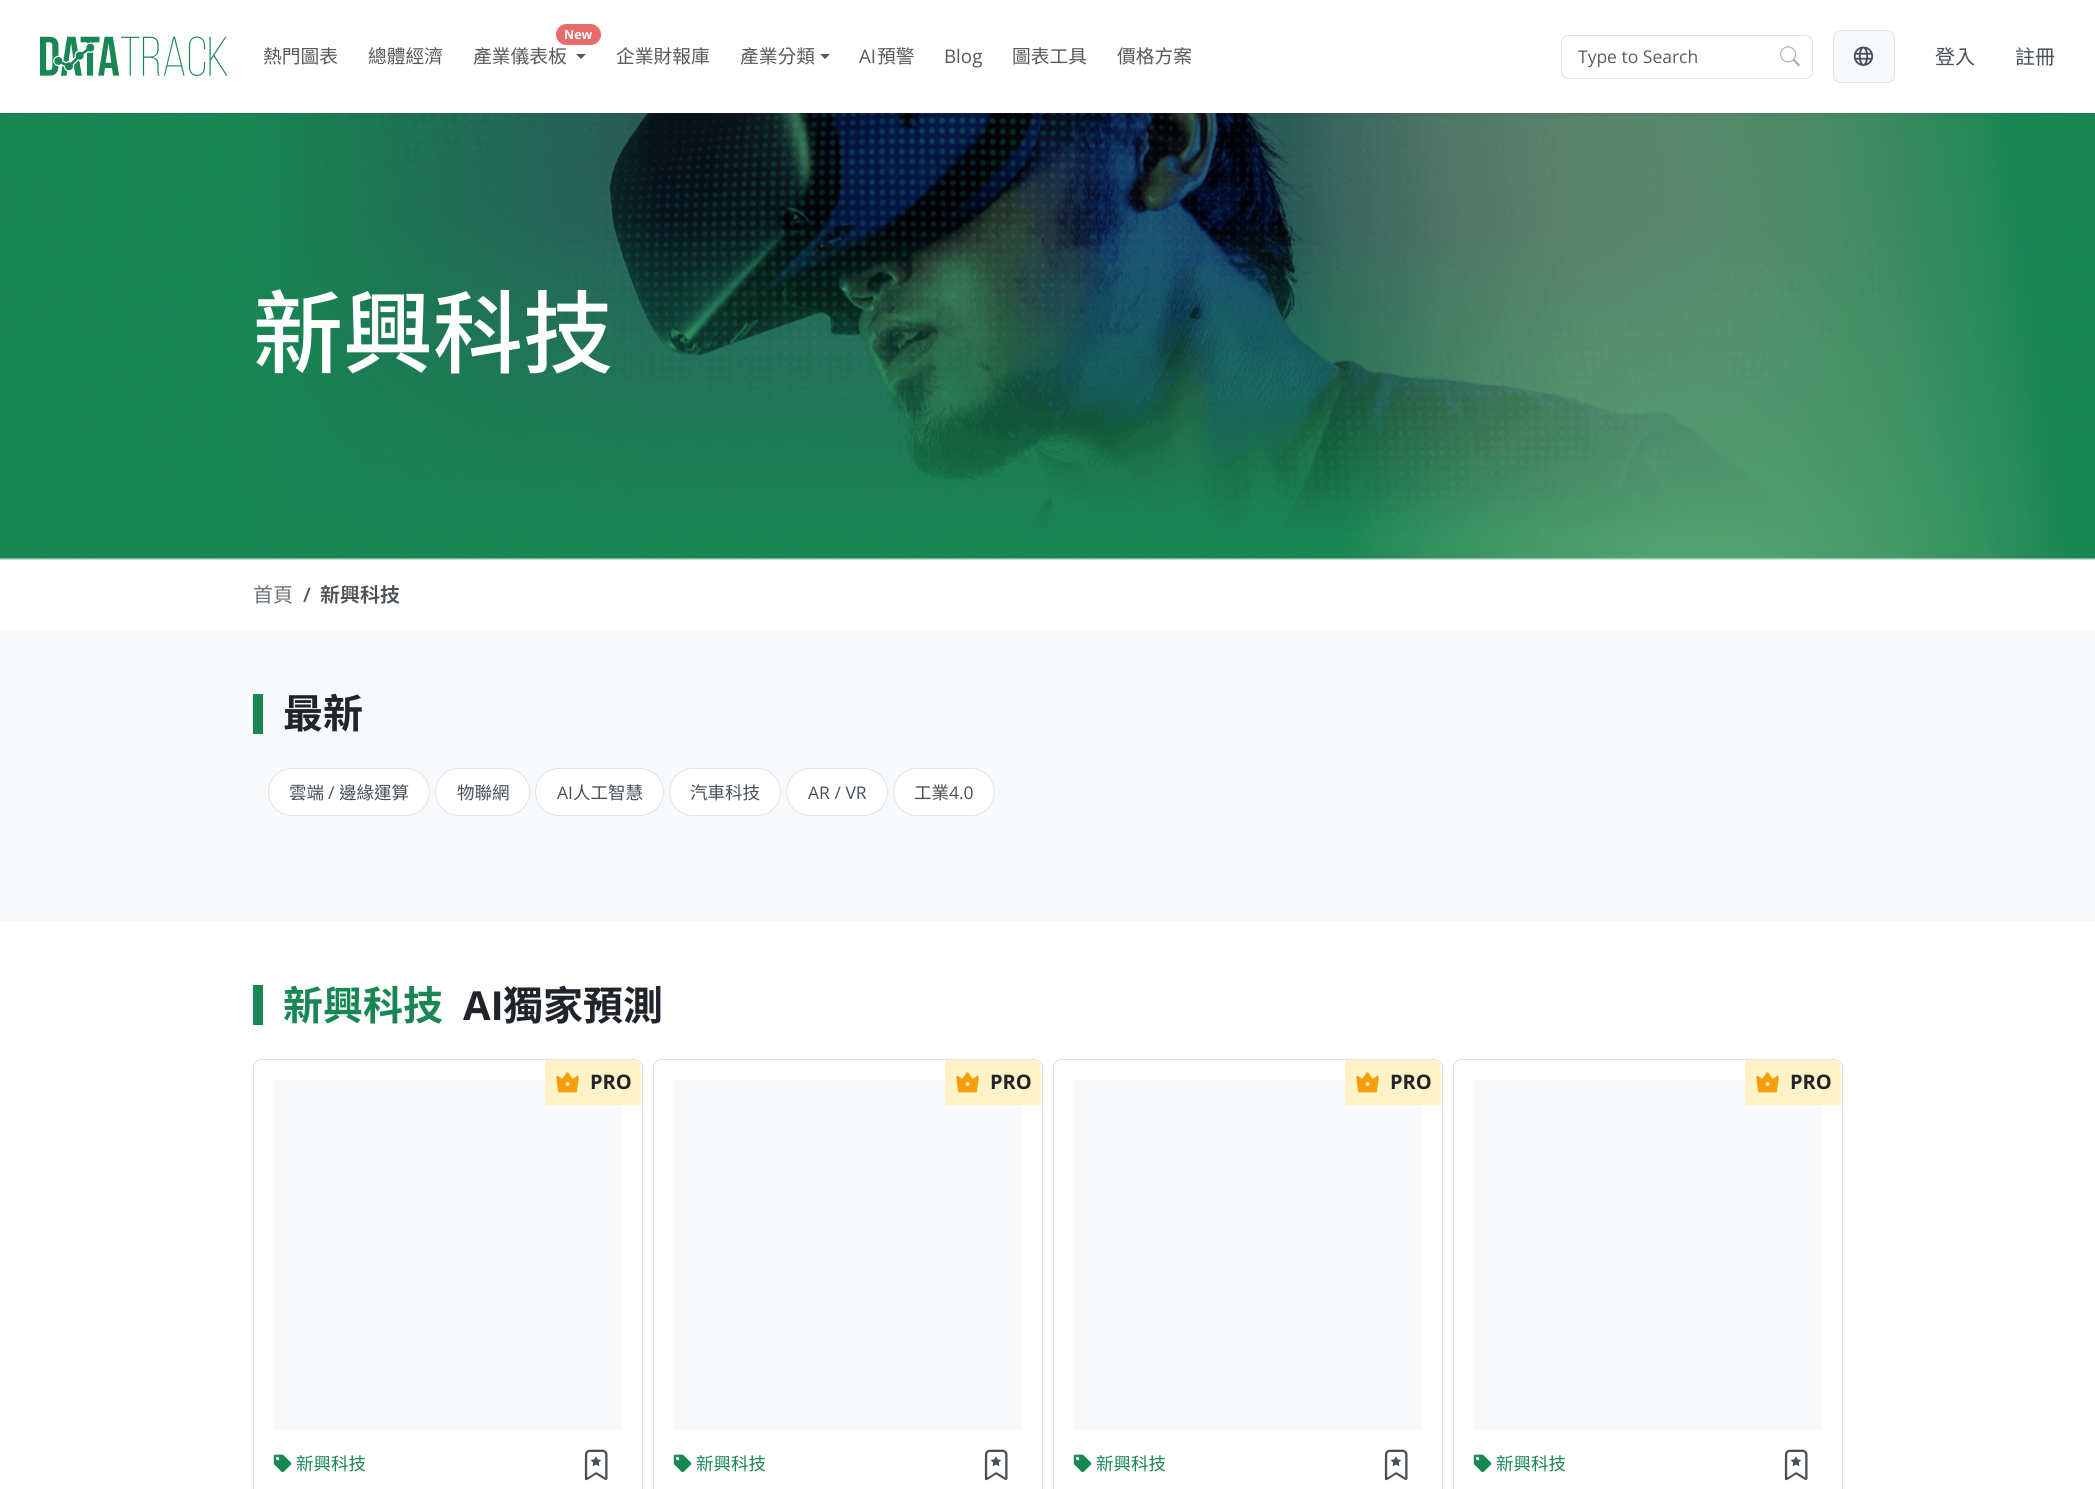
#include <cairo.h>
#include <math.h>
#include <stddef.h>

typedef struct { const char *family; double size; int italic, bold; unsigned color; } style_t;
static cairo_t *ctx;

static void ink(unsigned color) {
    cairo_set_source_rgb(ctx, (color >> 16) / 255.0, (color >> 8 & 255) / 255.0, (color & 255) / 255.0);
}

static void write(double x, double y, const char *s, const style_t *st) {
    cairo_select_font_face(ctx, st->family, st->italic ? CAIRO_FONT_SLANT_ITALIC : CAIRO_FONT_SLANT_NORMAL,
        st->bold ? CAIRO_FONT_WEIGHT_BOLD : CAIRO_FONT_WEIGHT_NORMAL);
    cairo_set_font_size(ctx, st->size);
    ink(st->color);
    cairo_move_to(ctx, x, y);
    cairo_show_text(ctx, s);
}

static void block(double x, double y, double w, double h, unsigned color) {
    ink(color);
    cairo_rectangle(ctx, x, y, w, h);
    cairo_fill(ctx);
}

static void round_path(double x, double y, double w, double h, double r) {
    cairo_new_sub_path(ctx);
    cairo_arc(ctx, x + w - r, y + h - r, r, 0, M_PI / 2);
    cairo_arc(ctx, x + r, y + h - r, r, M_PI / 2, M_PI);
    cairo_arc(ctx, x + r, y + r, r, M_PI, 1.5 * M_PI);
    cairo_arc(ctx, x + w - r, y + r, r, 1.5 * M_PI, 2 * M_PI);
    cairo_close_path(ctx);
}

static void blur_box(double x, double y, double w, double h, double r, double blur, double alpha) {
    cairo_push_group_with_content(ctx, CAIRO_CONTENT_ALPHA);
    cairo_set_operator(ctx, CAIRO_OPERATOR_SOURCE);
    for (int i = 15; i >= -15 && fmin(w, h) + blur * i / 3 > 0; i -= 2) {
        double e = blur * i / 6;
        cairo_set_source_rgba(ctx, 0, 0, 0, alpha * erfc((i - 1) / 8.5) / 2);
        round_path(x - e, y - e, w + 2 * e, h + 2 * e, fmax(0, fmin(r + e + blur * .6, fmin(w, h) / 2 + e)));
        cairo_fill(ctx);
    }
    cairo_pattern_t *soft = cairo_pop_group(ctx);
    cairo_mask(ctx, soft);
    cairo_pattern_destroy(soft);
}

static void paste(const char *path, double x, double y, double w, double h) {
    cairo_surface_t *image = cairo_image_surface_create_from_png(path);
    cairo_save(ctx);
    cairo_set_source_surface(ctx, image, x, y);
    cairo_rectangle(ctx, x, y, w, h);
    cairo_fill(ctx);
    cairo_restore(ctx);
    cairo_surface_destroy(image);
}

static const style_t s1 = {"Noto Sans TC", 18.75, 0, 0, 0x595959};
static const style_t s2 = {"Open Sans", 12.5, 0, 1, 0xffffff};
static const style_t s3 = {"Open Sans", 18.75, 0, 0, 0x595959};
static const style_t s4 = {"Open Sans", 17.5, 0, 0, 0x595c5f};
static const style_t s5 = {"Noto Sans TC", 20, 0, 0, 0x495057};
static const style_t s6 = {"Noto Sans TC Medium", 90, 0, 0, 0xffffff};
static const style_t s7 = {"Noto Sans TC", 20, 0, 0, 0x6c757d};
static const style_t s8 = {"Open Sans SemiBold", 20, 0, 0, 0x595c5f};
static const style_t s9 = {"Noto Sans TC SemiBold", 20, 0, 0, 0x495057};
static const style_t s10 = {"Noto Sans TC", 40, 0, 1, 0x212529};
static const style_t s11 = {"Noto Sans TC", 17.5, 0, 0, 0x495057};
static const style_t s12 = {"Open Sans", 17.5, 0, 0, 0x495057};
static const style_t s13 = {"Noto Sans TC", 40, 0, 1, 0x198754};
static const style_t s14 = {"Open Sans", 40, 0, 1, 0x212529};
static const style_t s15 = {"Open Sans", 20, 0, 1, 0x212529};
static const style_t s16 = {"Noto Sans TC", 17.5, 0, 0, 0x198754};

int main(void) {
    cairo_surface_t *surface = cairo_image_surface_create(CAIRO_FORMAT_RGB24, 2095, 1489);
    ctx = cairo_create(surface);
    cairo_font_options_t *options = cairo_font_options_create();
    cairo_font_options_set_hint_metrics(options, CAIRO_HINT_METRICS_OFF);
    cairo_font_options_set_hint_style(options, CAIRO_HINT_STYLE_NONE);
    cairo_set_font_options(ctx, options);
    cairo_set_miter_limit(ctx, 4);
    ink(0xffffff);
    cairo_paint(ctx);
    paste("pic4.png", 0, 113, 2095, 447);
    ink(0x212529);
    blur_box(0, 3, 2095, 112, 0, 2.5, 0.07);
    block(0, 1, 2095, 112, 0xffffff);
    paste("pic1.png", 40, 36, 188, 40);
    write(263, 63, "熱門圖表", &s1);
    write(368, 63, "總體經濟", &s1);
    ink(0xe86c6c);
    round_path(556, 24, 45, 21, 10.5);
    cairo_fill(ctx);
    write(564, 39, "New", &s2);
    write(473, 63, "產業儀表板", &s1);
    cairo_new_path(ctx);
    cairo_move_to(ctx, 576, 54);
    cairo_line_to(ctx, 586, 54);
    cairo_line_to(ctx, 581, 59);
    cairo_close_path(ctx);
    cairo_fill(ctx);
    write(616, 63, "企業財報庫", &s1);
    write(740, 63, "產業分類", &s1);
    cairo_new_path(ctx);
    cairo_move_to(ctx, 820, 54);
    cairo_line_to(ctx, 830, 54);
    cairo_line_to(ctx, 825, 59);
    cairo_close_path(ctx);
    cairo_fill(ctx);
    write(859, 63, "AI", &s3);
    write(877, 63, "預警", &s1);
    write(944, 63, "Blog", &s3);
    write(1012, 63, "圖表工具", &s1);
    write(1117, 63, "價格方案", &s1);
    round_path(1561.5, 35.5, 251, 43, 7.5);
    ink(0xdee2e6);
    cairo_set_line_width(ctx, 1);
    cairo_stroke(ctx);
    write(1578, 63, "Type to Search", &s4);
    paste("pic2.png", 1780, 46, 20, 21);
    ink(0xf8f9fa);
    round_path(1833.5, 30.5, 61, 52, 7.5);
    cairo_fill_preserve(ctx);
    ink(0xdee2e6);
    cairo_stroke(ctx);
    paste("pic3.png", 1853, 46, 21, 20);
    write(1935, 64, "登入", &s5);
    write(2015, 64, "註冊", &s5);
    write(253, 366, "新興科技", &s6);
    write(253, 602, "首頁", &s7);
    write(303, 602, "/", &s8);
    write(320, 602, "新興科技", &s9);
    block(0, 630, 2095, 291, 0xf8f9fa);
    block(253, 694, 10, 40, 0x198754);
    write(283, 728, "最新", &s10);
    ink(0xffffff);
    round_path(268.5, 768.5, 161, 47, 23.5);
    cairo_fill_preserve(ctx);
    ink(0xdee2e6);
    cairo_stroke(ctx);
    write(289, 799, "雲端", &s11);
    write(328, 799, "/", &s12);
    write(339, 799, "邊緣運算", &s11);
    ink(0xffffff);
    round_path(435.5, 768.5, 94, 47, 23.5);
    cairo_fill_preserve(ctx);
    ink(0xdee2e6);
    cairo_stroke(ctx);
    write(457, 799, "物聯網", &s11);
    ink(0xffffff);
    round_path(535.5, 768.5, 128, 47, 23.5);
    cairo_fill_preserve(ctx);
    ink(0xdee2e6);
    cairo_stroke(ctx);
    write(557, 799, "AI", &s12);
    write(573, 799, "人工智慧", &s11);
    ink(0xffffff);
    round_path(669.5, 768.5, 111, 47, 23.5);
    cairo_fill_preserve(ctx);
    ink(0xdee2e6);
    cairo_stroke(ctx);
    write(690, 799, "汽車科技", &s11);
    ink(0xffffff);
    round_path(786.5, 768.5, 101, 47, 23.5);
    cairo_fill_preserve(ctx);
    ink(0xdee2e6);
    cairo_stroke(ctx);
    write(808, 799, "AR / VR", &s12);
    ink(0xffffff);
    round_path(893.5, 768.5, 101, 47, 23.5);
    cairo_fill_preserve(ctx);
    ink(0xdee2e6);
    cairo_stroke(ctx);
    write(914, 799, "工業", &s11);
    write(949, 799, "4.0", &s12);
    block(253, 985, 10, 40, 0x198754);
    write(283, 1020, "新興科技", &s13);
    write(463, 1020, "AI", &s14);
    write(503, 1020, "獨家預測", &s10);
    round_path(253.5, 1059.5, 389, 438, 7.5);
    ink(0xdee2e6);
    cairo_stroke(ctx);
    block(274, 1080, 347, 350, 0xf8f9fa);
    ink(0xfef3c7);
    cairo_new_path(ctx);
    cairo_move_to(ctx, 545, 1060);
    cairo_line_to(ctx, 633, 1060);
    cairo_curve_to(ctx, 637.5, 1060, 641, 1063.5, 641, 1068);
    cairo_line_to(ctx, 641, 1105);
    cairo_line_to(ctx, 545, 1105);
    cairo_close_path(ctx);
    cairo_fill(ctx);
    paste("pic5.png", 556, 1072, 23, 21);
    write(590, 1089, "PRO", &s15);
    paste("pic6.png", 273, 1454, 19, 19);
    write(296, 1470, "新興科技", &s16);
    paste("pic7.png", 584, 1449, 24, 32);
    round_path(653.5, 1059.5, 389, 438, 7.5);
    ink(0xdee2e6);
    cairo_stroke(ctx);
    block(674, 1080, 347, 350, 0xf8f9fa);
    ink(0xfef3c7);
    cairo_new_path(ctx);
    cairo_move_to(ctx, 945, 1060);
    cairo_line_to(ctx, 1033, 1060);
    cairo_curve_to(ctx, 1037.5, 1060, 1041, 1063.5, 1041, 1068);
    cairo_line_to(ctx, 1041, 1105);
    cairo_line_to(ctx, 945, 1105);
    cairo_close_path(ctx);
    cairo_fill(ctx);
    paste("pic5.png", 956, 1072, 23, 21);
    write(990, 1089, "PRO", &s15);
    paste("pic6.png", 673, 1454, 19, 19);
    write(696, 1470, "新興科技", &s16);
    paste("pic7.png", 984, 1449, 24, 32);
    round_path(1053.5, 1059.5, 389, 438, 7.5);
    ink(0xdee2e6);
    cairo_stroke(ctx);
    block(1074, 1080, 347, 350, 0xf8f9fa);
    ink(0xfef3c7);
    cairo_new_path(ctx);
    cairo_move_to(ctx, 1345, 1060);
    cairo_line_to(ctx, 1433, 1060);
    cairo_curve_to(ctx, 1437.5, 1060, 1441, 1063.5, 1441, 1068);
    cairo_line_to(ctx, 1441, 1105);
    cairo_line_to(ctx, 1345, 1105);
    cairo_close_path(ctx);
    cairo_fill(ctx);
    paste("pic5.png", 1356, 1072, 23, 21);
    write(1390, 1089, "PRO", &s15);
    paste("pic6.png", 1073, 1454, 19, 19);
    write(1096, 1470, "新興科技", &s16);
    paste("pic7.png", 1384, 1449, 24, 32);
    round_path(1453.5, 1059.5, 389, 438, 7.5);
    ink(0xdee2e6);
    cairo_stroke(ctx);
    block(1474, 1080, 347, 350, 0xf8f9fa);
    ink(0xfef3c7);
    cairo_new_path(ctx);
    cairo_move_to(ctx, 1745, 1060);
    cairo_line_to(ctx, 1833, 1060);
    cairo_curve_to(ctx, 1837.5, 1060, 1841, 1063.5, 1841, 1068);
    cairo_line_to(ctx, 1841, 1105);
    cairo_line_to(ctx, 1745, 1105);
    cairo_close_path(ctx);
    cairo_fill(ctx);
    paste("pic5.png", 1756, 1072, 23, 21);
    write(1790, 1089, "PRO", &s15);
    paste("pic6.png", 1473, 1454, 19, 19);
    write(1496, 1470, "新興科技", &s16);
    paste("pic7.png", 1784, 1449, 24, 32);
    cairo_surface_write_to_png(surface, "screenshot.png");
    cairo_font_options_destroy(options);
    cairo_destroy(ctx);
    cairo_surface_destroy(surface);
    return 0;
}
